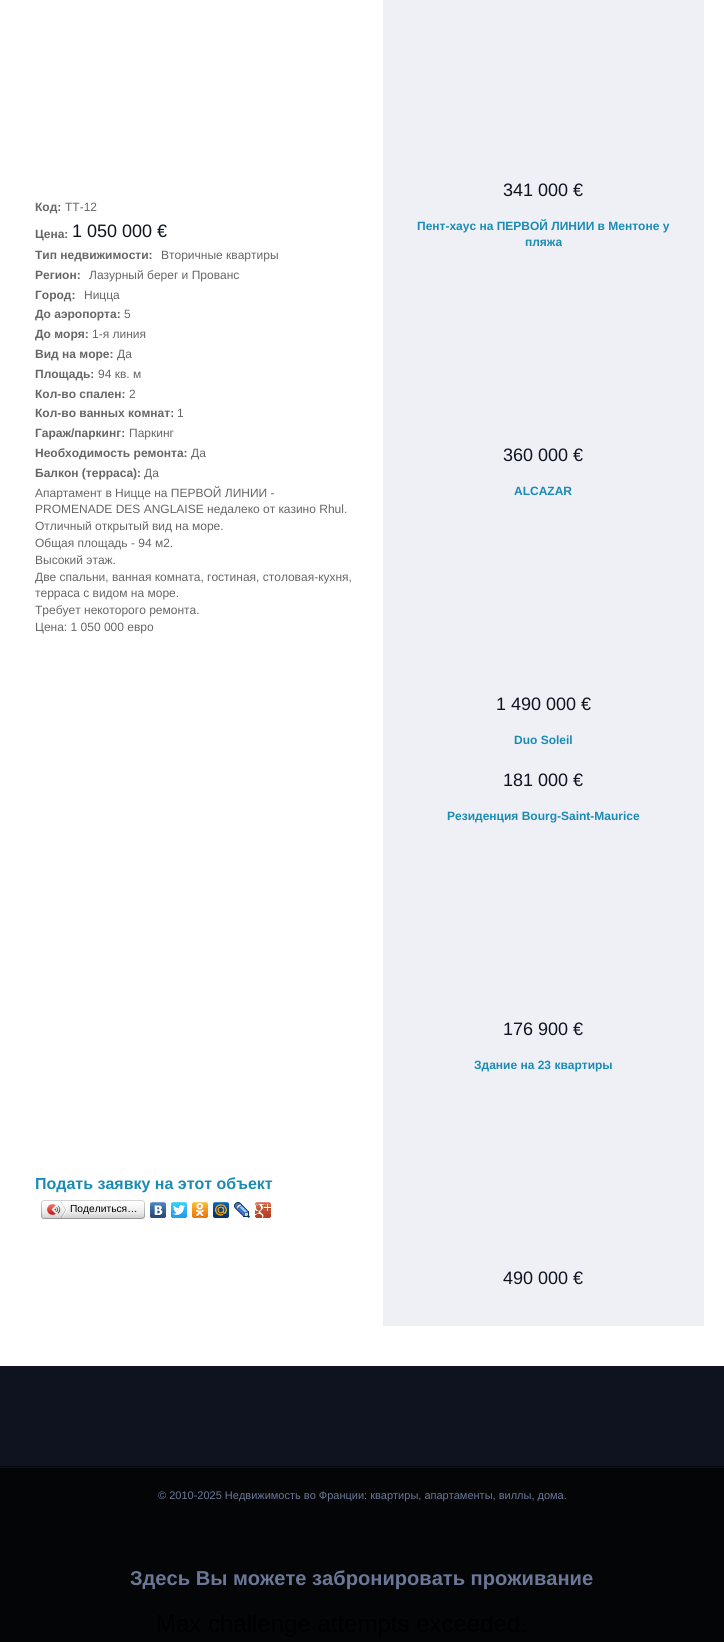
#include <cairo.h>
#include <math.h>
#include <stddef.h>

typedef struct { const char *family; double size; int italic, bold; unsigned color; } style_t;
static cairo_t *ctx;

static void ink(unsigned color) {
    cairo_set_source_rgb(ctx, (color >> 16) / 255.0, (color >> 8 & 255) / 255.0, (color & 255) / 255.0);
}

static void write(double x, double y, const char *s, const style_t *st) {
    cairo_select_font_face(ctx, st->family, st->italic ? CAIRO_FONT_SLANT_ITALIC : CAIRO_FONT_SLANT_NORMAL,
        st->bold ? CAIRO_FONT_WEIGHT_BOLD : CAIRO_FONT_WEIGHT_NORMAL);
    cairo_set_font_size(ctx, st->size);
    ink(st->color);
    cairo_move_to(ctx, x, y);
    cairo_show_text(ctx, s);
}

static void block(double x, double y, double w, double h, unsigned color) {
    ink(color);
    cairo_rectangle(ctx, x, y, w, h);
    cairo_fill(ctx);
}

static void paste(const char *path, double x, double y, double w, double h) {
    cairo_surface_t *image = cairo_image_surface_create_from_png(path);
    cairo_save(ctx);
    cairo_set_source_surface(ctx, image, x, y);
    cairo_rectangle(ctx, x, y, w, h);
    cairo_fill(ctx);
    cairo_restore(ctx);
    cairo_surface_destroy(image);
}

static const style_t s1 = {"Liberation Sans", 12, 0, 1, 0x666666};
static const style_t s2 = {"Liberation Sans", 12, 0, 0, 0x666666};
static const style_t s3 = {"Liberation Sans", 18, 0, 0, 0x0f131f};
static const style_t s4 = {"Liberation Sans", 16, 0, 1, 0x1b8bb4};
static const style_t s5 = {"Liberation Sans", 10.25, 0, 0, 0x000000};
static const style_t s6 = {"Liberation Sans", 12, 0, 1, 0x1b8bb4};
static const style_t s7 = {"Liberation Sans", 11, 0, 0, 0x6a7796};
static const style_t s8 = {"Liberation Sans", 20.1, 0, 1, 0x6a7796};

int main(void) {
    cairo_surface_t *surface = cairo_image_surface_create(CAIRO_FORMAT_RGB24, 724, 1642);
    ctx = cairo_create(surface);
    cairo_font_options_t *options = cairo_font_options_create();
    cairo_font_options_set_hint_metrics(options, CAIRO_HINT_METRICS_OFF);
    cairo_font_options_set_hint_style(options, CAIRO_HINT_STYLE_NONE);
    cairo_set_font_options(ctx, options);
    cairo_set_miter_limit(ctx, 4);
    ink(0xffffff);
    cairo_paint(ctx);
    write(35, 211, "Код:", &s1);
    write(65, 211, "TT-12", &s2);
    write(35, 238, "Цена:", &s1);
    write(72, 237, "1 050 000 €", &s3);
    write(35, 259, "Тип недвижимости:", &s1);
    write(161, 259, "Вторичные квартиры", &s2);
    write(35, 279, "Регион:", &s1);
    write(89, 279, "Лазурный берег и Прованс", &s2);
    write(35, 299, "Город:", &s1);
    write(84, 299, "Ницца", &s2);
    write(35, 318, "До аэропорта:", &s1);
    write(124, 318, "5", &s2);
    write(35, 338, "До моря:", &s1);
    write(92, 338, "1-я линия", &s2);
    write(35, 358, "Вид на море:", &s1);
    write(117, 358, "Да", &s2);
    write(35, 378, "Площадь:", &s1);
    write(98, 378, "94 кв. м", &s2);
    write(35, 398, "Кол-во спален:", &s1);
    write(129, 398, "2", &s2);
    write(35, 417, "Кол-во ванных комнат:", &s1);
    write(177, 417, "1", &s2);
    write(35, 437, "Гараж/паркинг:", &s1);
    write(129, 437, "Паркинг", &s2);
    write(35, 457, "Необходимость ремонта:", &s1);
    write(191, 457, "Да", &s2);
    write(35, 477, "Балкон (терраса):", &s1);
    write(144, 477, "Да", &s2);
    write(35, 497, "Апартамент в Ницце на ПЕРВОЙ ЛИНИИ -", &s2);
    write(35, 513, "PROMENADE DES ANGLAISE недалеко от казино Rhul.", &s2);
    write(35, 530, "Отличный открытый вид на море.", &s2);
    write(35, 547, "Общая площадь - 94 м2.", &s2);
    write(35, 564, "Высокий этаж.", &s2);
    write(35, 581, "Две спальни, ванная комната, гостиная, столовая-кухня,", &s2);
    write(35, 597, "терраса с видом на море.", &s2);
    write(35, 614, "Требует некоторого ремонта.", &s2);
    write(35, 631, "Цена: 1 050 000 евро", &s2);
    write(35, 1189, "Подать заявку на этот объект", &s4);
    paste("pic1.png", 44, 1200, 98, 19);
    paste("pic2.png", 41, 1200, 3, 19);
    paste("pic3.png", 47, 1201, 20, 17);
    write(70, 1212, "Поделиться…", &s5);
    paste("pic4.png", 142, 1200, 3, 19);
    paste("pic5.png", 150, 1202, 16, 16);
    paste("pic6.png", 171, 1202, 16, 16);
    paste("pic7.png", 192, 1202, 16, 16);
    paste("pic8.png", 213, 1202, 16, 16);
    paste("pic9.png", 234, 1202, 16, 16);
    paste("pic10.png", 255, 1202, 16, 16);
    block(383, 0, 321, 1326, 0xeef0f5);
    write(503, 196, "341 000 €", &s3);
    write(417, 230, "Пент-хаус на ПЕРВОЙ ЛИНИИ в Ментоне у", &s6);
    write(525, 246, "пляжа", &s6);
    write(503, 461, "360 000 €", &s3);
    write(514, 495, "ALCAZAR", &s6);
    write(496, 710, "1 490 000 €", &s3);
    write(514, 744, "Duo Soleil", &s6);
    write(503, 786, "181 000 €", &s3);
    write(447, 820, "Резиденция Bourg-Saint-Maurice", &s6);
    write(503, 1035, "176 900 €", &s3);
    write(474, 1069, "Здание на 23 квартиры", &s6);
    write(503, 1284, "490 000 €", &s3);
    block(0, 1366, 724, 100, 0x0f131f);
    block(0, 1466, 724, 1, 0x040507);
    block(0, 1468, 724, 174, 0x040507);
    block(0, 1467, 724, 1, 0x0f131f);
    write(158, 1499, "© 2010-2025 Недвижимость во Франции: квартиры, апартаменты, виллы, дома.", &s7);
    write(130, 1585, "Здесь Вы можете забронировать проживание", &s8);
    paste("pic11.png", 158, 1615, 367, 22);
    cairo_surface_write_to_png(surface, "screenshot.png");
    cairo_font_options_destroy(options);
    cairo_destroy(ctx);
    cairo_surface_destroy(surface);
    return 0;
}
